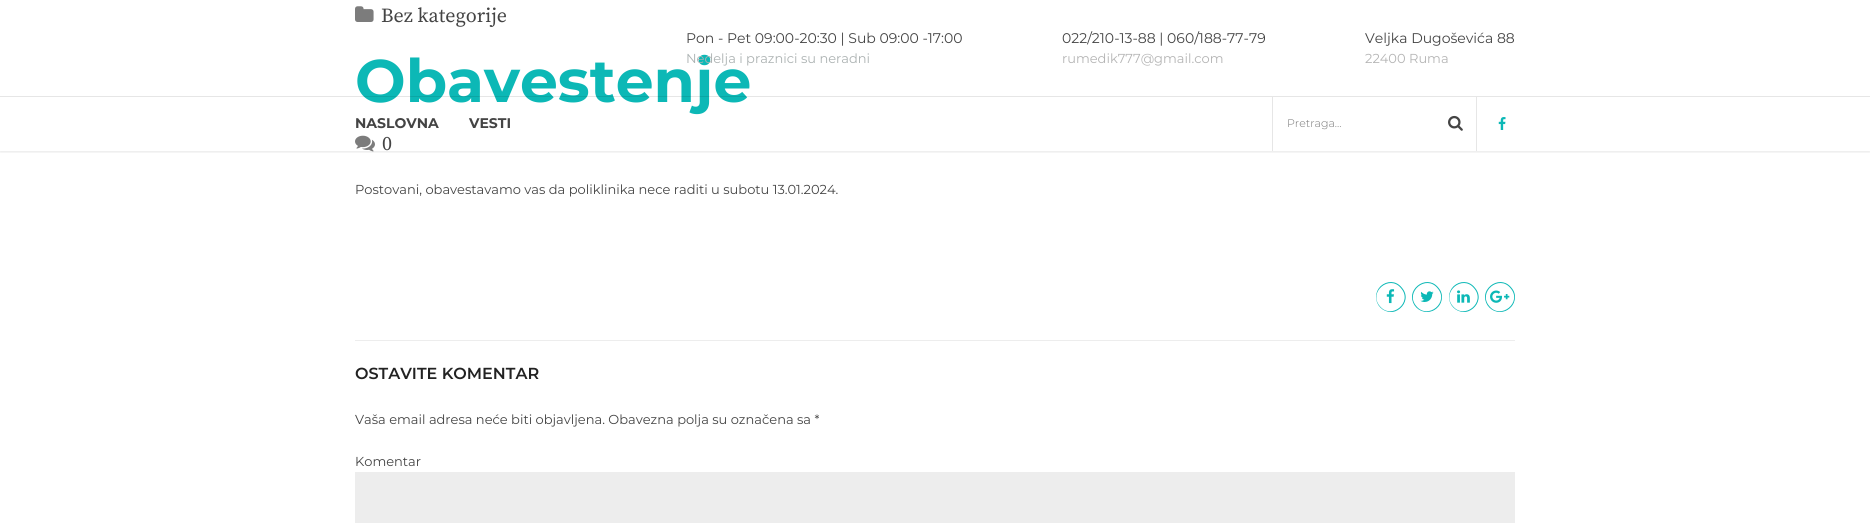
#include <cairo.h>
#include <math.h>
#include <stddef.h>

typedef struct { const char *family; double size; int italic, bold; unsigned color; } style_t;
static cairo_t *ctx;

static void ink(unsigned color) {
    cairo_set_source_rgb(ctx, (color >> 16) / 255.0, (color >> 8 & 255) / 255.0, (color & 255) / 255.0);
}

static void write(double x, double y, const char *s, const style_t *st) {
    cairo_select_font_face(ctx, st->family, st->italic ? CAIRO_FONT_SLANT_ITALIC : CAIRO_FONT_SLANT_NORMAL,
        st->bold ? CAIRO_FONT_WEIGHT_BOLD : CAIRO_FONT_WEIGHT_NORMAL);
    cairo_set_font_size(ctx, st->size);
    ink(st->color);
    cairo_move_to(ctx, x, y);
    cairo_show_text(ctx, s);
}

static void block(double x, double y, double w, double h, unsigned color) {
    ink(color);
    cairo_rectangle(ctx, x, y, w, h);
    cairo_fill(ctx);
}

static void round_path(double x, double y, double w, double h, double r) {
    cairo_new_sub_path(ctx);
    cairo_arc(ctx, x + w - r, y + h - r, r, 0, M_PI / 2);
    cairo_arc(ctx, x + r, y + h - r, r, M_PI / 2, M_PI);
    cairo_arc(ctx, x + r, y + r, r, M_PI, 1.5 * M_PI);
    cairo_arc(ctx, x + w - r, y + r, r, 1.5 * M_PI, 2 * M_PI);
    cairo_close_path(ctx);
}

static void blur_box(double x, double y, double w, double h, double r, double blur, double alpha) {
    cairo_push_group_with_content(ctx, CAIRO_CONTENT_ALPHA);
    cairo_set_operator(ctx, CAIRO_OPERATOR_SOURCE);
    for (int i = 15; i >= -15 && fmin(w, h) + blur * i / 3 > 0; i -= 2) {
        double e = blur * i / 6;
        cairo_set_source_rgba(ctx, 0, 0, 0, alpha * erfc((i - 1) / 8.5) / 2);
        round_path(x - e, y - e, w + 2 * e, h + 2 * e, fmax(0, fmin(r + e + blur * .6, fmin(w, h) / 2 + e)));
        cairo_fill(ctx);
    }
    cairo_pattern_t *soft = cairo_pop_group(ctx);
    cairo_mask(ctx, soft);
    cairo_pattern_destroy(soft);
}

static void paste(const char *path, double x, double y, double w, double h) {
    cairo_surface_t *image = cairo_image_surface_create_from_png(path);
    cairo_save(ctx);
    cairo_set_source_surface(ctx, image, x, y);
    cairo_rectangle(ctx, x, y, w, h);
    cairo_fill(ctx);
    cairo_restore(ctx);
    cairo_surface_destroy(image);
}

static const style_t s1 = {"Source Serif Pro", 20, 0, 0, 0x444444};
static const style_t s2 = {"Montserrat", 60, 0, 1, 0x0cb8b6};
static const style_t s3 = {"Montserrat", 13, 0, 0, 0x444444};
static const style_t s4 = {"Montserrat SemiBold", 16, 0, 0, 0x222222};
static const style_t s5 = {"Montserrat", 14, 0, 0, 0x444444};
static const style_t s6 = {"Montserrat", 13, 0, 0, 0xacb2b2};
static const style_t s7 = {"Montserrat", 13, 0, 0, 0xb4b4b4};
static const style_t s8 = {"Montserrat", 14, 0, 1, 0x444444};
static const style_t s9 = {"Montserrat Light", 11, 0, 0, 0x757575};

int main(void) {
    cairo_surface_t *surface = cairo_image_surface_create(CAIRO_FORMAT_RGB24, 1870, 523);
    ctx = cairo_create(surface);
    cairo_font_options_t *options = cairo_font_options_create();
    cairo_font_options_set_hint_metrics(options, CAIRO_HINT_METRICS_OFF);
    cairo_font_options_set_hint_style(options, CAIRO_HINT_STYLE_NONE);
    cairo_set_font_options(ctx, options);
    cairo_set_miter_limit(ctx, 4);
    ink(0xffffff);
    cairo_paint(ctx);
    paste("pic1.png", 355, 6, 19, 16);
    write(381, 22, "Bez kategorije", &s1);
    write(355, 102, "Obavestenje", &s2);
    paste("pic2.png", 355, 135, 20, 17);
    write(382, 150, "0", &s1);
    write(355, 194, "Postovani, obavestavamo vas da poliklinika nece raditi u subotu 13.01.2024.", &s3);
    cairo_save(ctx);
    round_path(1376, 282, 30, 30, 15);
    cairo_clip(ctx);
    cairo_new_path(ctx);
    cairo_move_to(ctx, 1401.5, 288);
    cairo_curve_to(ctx, 1414, 302.5, 1391.5, 321, 1379.5, 306.5);
    cairo_curve_to(ctx, 1367, 292, 1389.5, 273, 1401.5, 288);
    cairo_close_path(ctx);
    ink(0x0cb8b6);
    cairo_set_line_width(ctx, 1);
    cairo_stroke(ctx);
    cairo_restore(ctx);
    paste("pic3.png", 1386, 289, 9, 15);
    cairo_save(ctx);
    round_path(1412, 282, 30, 30, 15);
    cairo_clip(ctx);
    cairo_new_path(ctx);
    cairo_move_to(ctx, 1438, 288);
    cairo_curve_to(ctx, 1450.5, 302.5, 1428, 321, 1416, 306.5);
    cairo_curve_to(ctx, 1403.5, 292, 1426, 273, 1438, 288);
    cairo_close_path(ctx);
    ink(0x0cb8b6);
    cairo_set_line_width(ctx, 1);
    cairo_stroke(ctx);
    cairo_restore(ctx);
    paste("pic4.png", 1420, 291, 14, 11);
    cairo_save(ctx);
    round_path(1449, 282, 30, 30, 15);
    cairo_clip(ctx);
    cairo_new_path(ctx);
    cairo_move_to(ctx, 1474.5, 288);
    cairo_curve_to(ctx, 1487, 302.5, 1464.5, 321, 1452.5, 306.5);
    cairo_curve_to(ctx, 1440, 292, 1462.5, 273, 1474.5, 288);
    cairo_close_path(ctx);
    ink(0x0cb8b6);
    cairo_set_line_width(ctx, 1);
    cairo_stroke(ctx);
    cairo_restore(ctx);
    paste("pic5.png", 1457, 290, 13, 13);
    cairo_save(ctx);
    round_path(1485, 282, 30, 30, 15);
    cairo_clip(ctx);
    cairo_new_path(ctx);
    cairo_move_to(ctx, 1511, 288);
    cairo_curve_to(ctx, 1523.5, 302.5, 1501, 321, 1489, 306.5);
    cairo_curve_to(ctx, 1476.5, 292, 1499, 273, 1511, 288);
    cairo_close_path(ctx);
    ink(0x0cb8b6);
    cairo_set_line_width(ctx, 1);
    cairo_stroke(ctx);
    cairo_restore(ctx);
    paste("pic6.png", 1490, 290, 20, 13);
    block(355, 340, 1160, 1, 0xededed);
    write(355, 379, "OSTAVITE KOMENTAR", &s4);
    write(355, 424, "Vaša email adresa neće biti objavljena. Obavezna polja su označena sa *", &s3);
    write(355, 466, "Komentar", &s3);
    block(355, 472, 1160, 51, 0xededed);
    cairo_save(ctx);
    cairo_rectangle(ctx, 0, 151, 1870, 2);
    cairo_clip(ctx);
    ink(0x000000);
    blur_box(0, 1, 1870, 151, 0, 1.5, 0.1);
    cairo_restore(ctx);
    write(686, 43, "Pon - Pet 09:00-20:30 | Sub 09:00 -17:00", &s5);
    write(686, 63, "Nedelja i praznici su neradni", &s6);
    write(1062, 43, "022/210-13-88 | 060/188-77-79", &s5);
    write(1062, 63, "rumedik777@gmail.com", &s7);
    write(1365, 43, "Veljka Dugoševića 88", &s5);
    write(1365, 63, "22400 Ruma", &s7);
    cairo_set_source_rgba(ctx, 0, 0, 0, 0.1);
    cairo_rectangle(ctx, 0, 96, 935, 1);
    cairo_fill(ctx);
    block(935, 96, 935, 1, 0xe6e6e6);
    write(355, 128, "NASLOVNA", &s8);
    write(469, 128, "VESTI", &s8);
    block(1476, 97, 1, 54, 0xe6e6e6);
    block(1272, 97, 1, 54, 0xe6e6e6);
    write(1287, 127, "Pretraga...", &s9);
    paste("pic7.png", 1448, 115, 15, 16);
    paste("pic8.png", 1498, 117, 8, 13);
    cairo_surface_write_to_png(surface, "screenshot.png");
    cairo_font_options_destroy(options);
    cairo_destroy(ctx);
    cairo_surface_destroy(surface);
    return 0;
}
